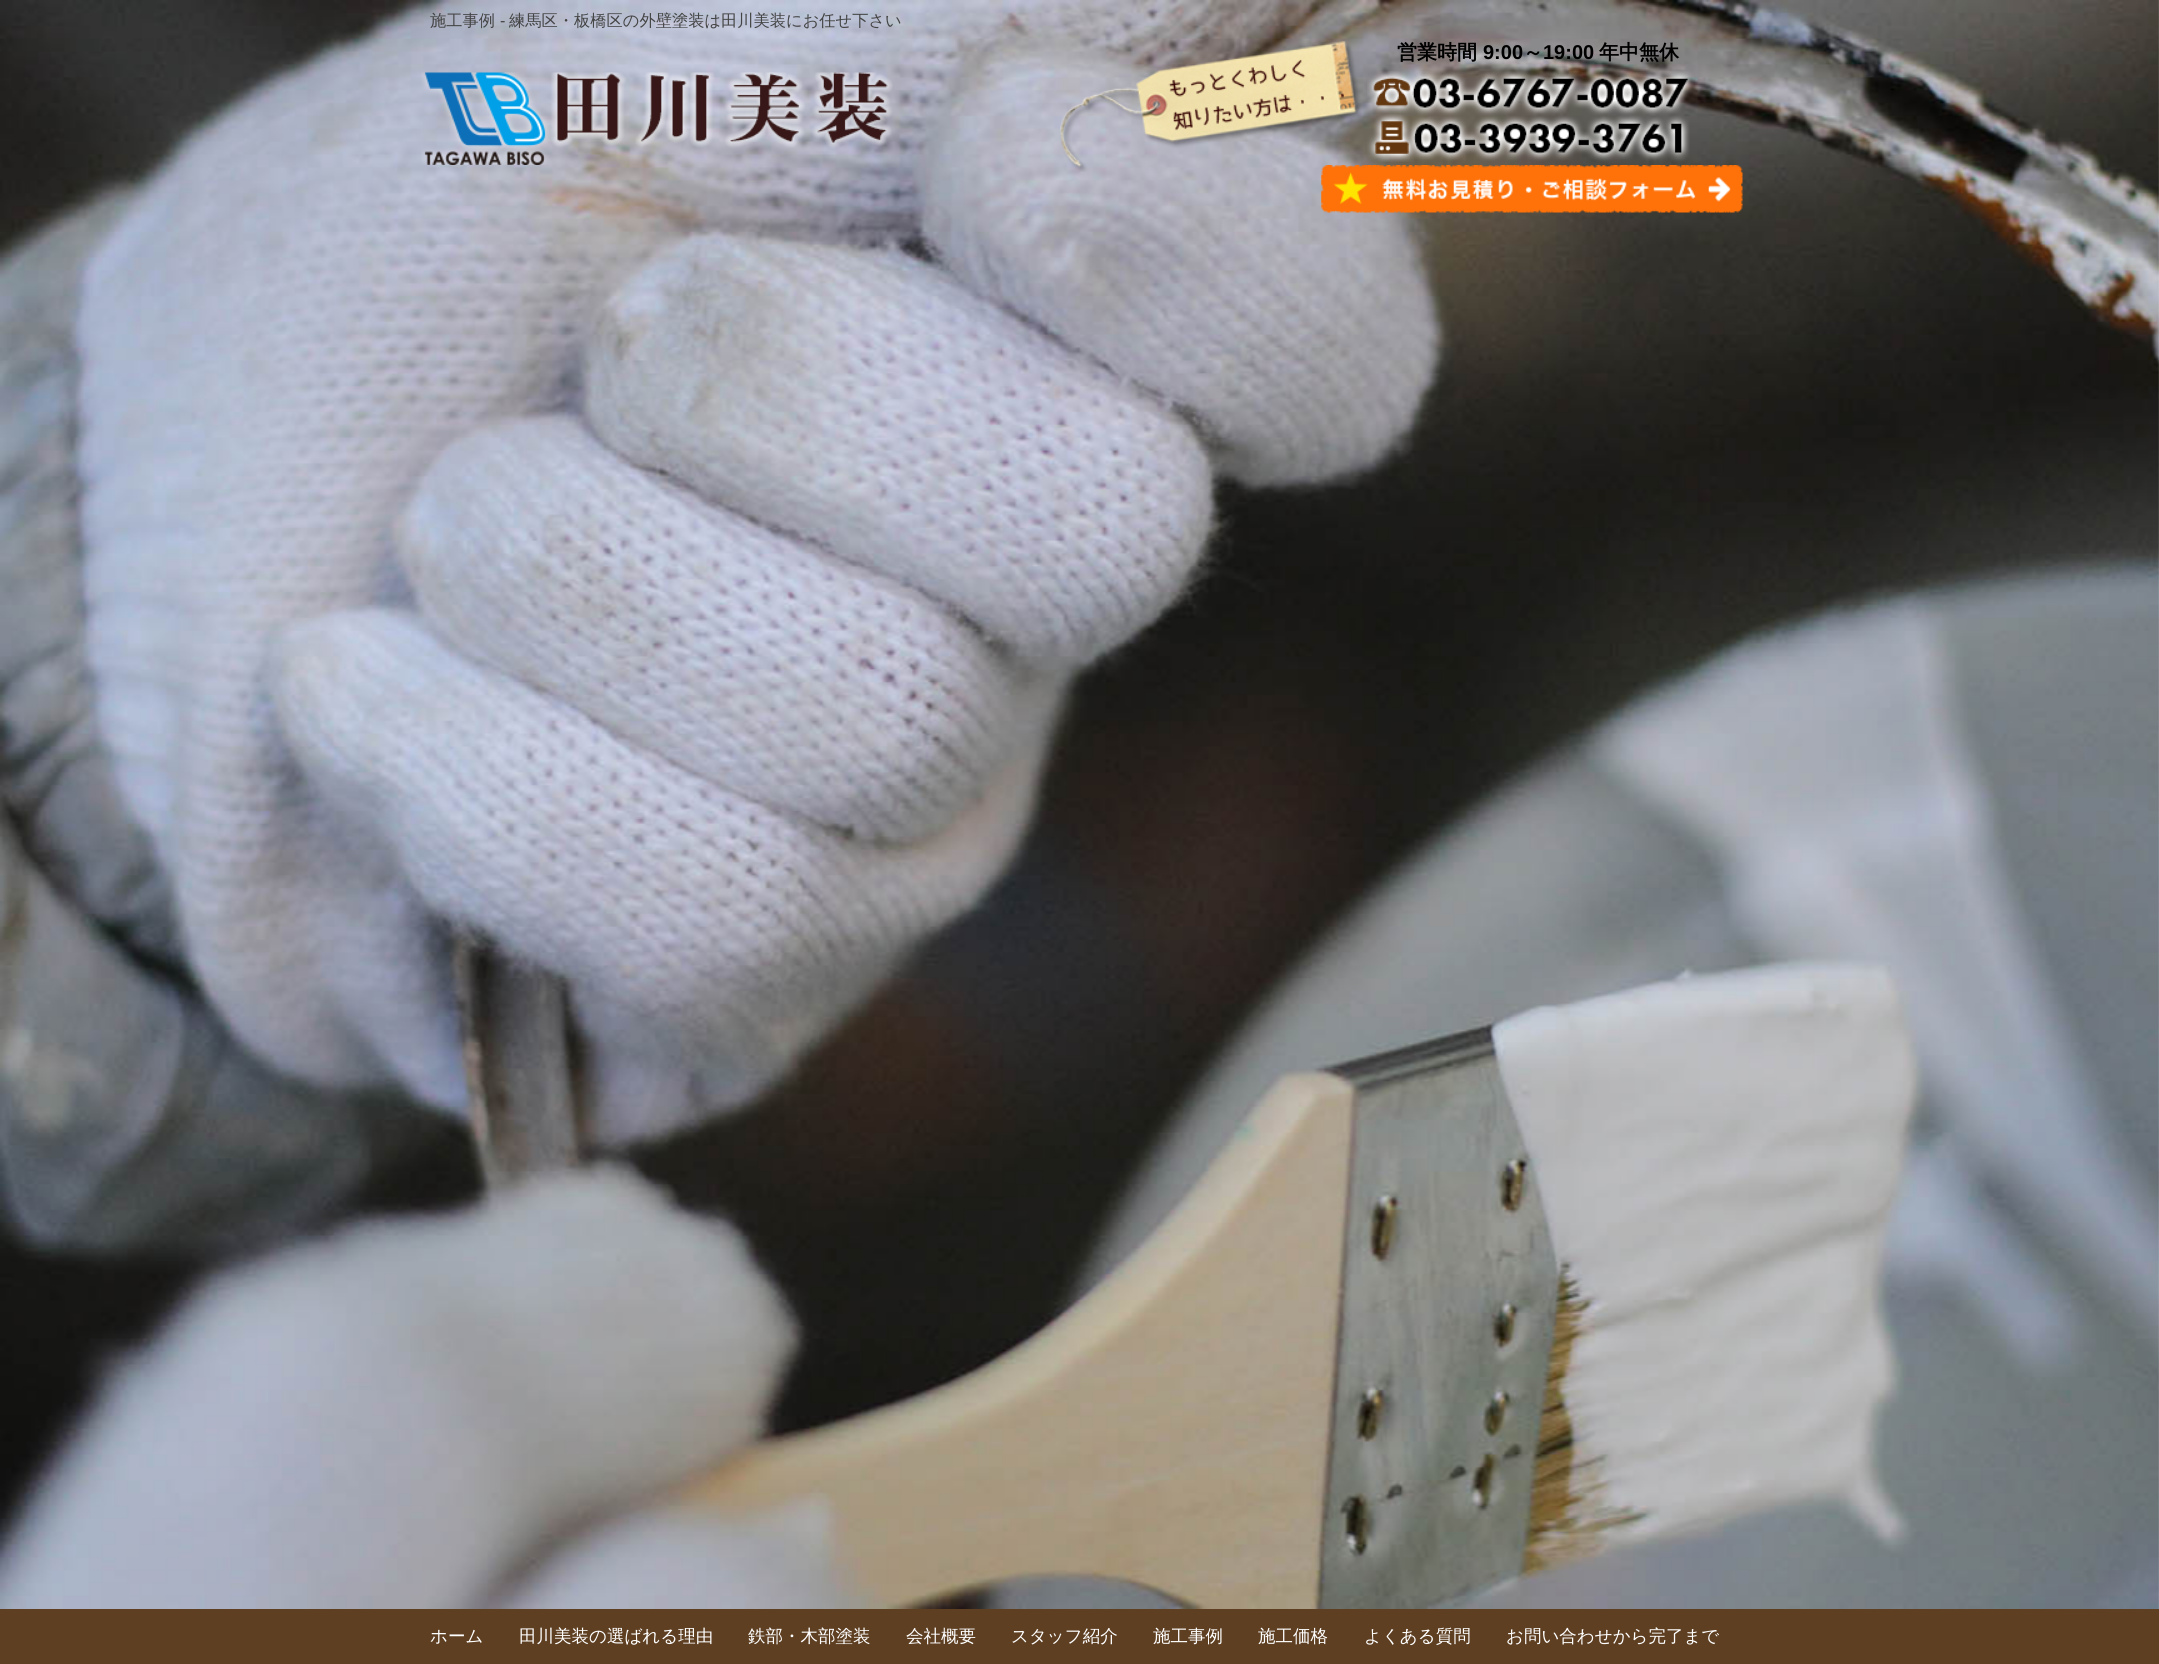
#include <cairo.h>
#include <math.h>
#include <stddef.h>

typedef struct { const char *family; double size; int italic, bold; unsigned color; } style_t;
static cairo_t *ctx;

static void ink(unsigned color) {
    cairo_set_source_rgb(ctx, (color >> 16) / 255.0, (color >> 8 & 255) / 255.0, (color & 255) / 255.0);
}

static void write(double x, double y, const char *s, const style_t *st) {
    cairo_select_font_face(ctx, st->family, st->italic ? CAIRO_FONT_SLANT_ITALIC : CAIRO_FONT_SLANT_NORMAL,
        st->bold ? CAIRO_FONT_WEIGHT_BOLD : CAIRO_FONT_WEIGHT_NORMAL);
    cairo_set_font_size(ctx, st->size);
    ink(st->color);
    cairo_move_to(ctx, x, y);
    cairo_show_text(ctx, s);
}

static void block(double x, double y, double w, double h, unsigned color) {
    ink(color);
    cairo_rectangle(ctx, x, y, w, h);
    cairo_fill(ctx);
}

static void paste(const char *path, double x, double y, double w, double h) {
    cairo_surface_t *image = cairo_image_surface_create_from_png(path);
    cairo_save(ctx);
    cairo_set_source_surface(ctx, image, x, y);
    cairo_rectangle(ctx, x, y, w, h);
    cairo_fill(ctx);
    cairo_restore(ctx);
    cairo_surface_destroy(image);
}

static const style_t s1 = {"WenQuanYi Zen Hei Medium", 16.25, 0, 0, 0x444444};
static const style_t s2 = {"Liberation Sans", 16.25, 0, 0, 0x444444};
static const style_t s3 = {"WenQuanYi Zen Hei", 20, 0, 1, 0x000000};
static const style_t s4 = {"Liberation Sans", 20, 0, 1, 0x000000};
static const style_t s5 = {"WenQuanYi Zen Hei Medium", 17.5, 0, 0, 0xffffff};

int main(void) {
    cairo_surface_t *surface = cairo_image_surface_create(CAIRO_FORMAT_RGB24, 2159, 1664);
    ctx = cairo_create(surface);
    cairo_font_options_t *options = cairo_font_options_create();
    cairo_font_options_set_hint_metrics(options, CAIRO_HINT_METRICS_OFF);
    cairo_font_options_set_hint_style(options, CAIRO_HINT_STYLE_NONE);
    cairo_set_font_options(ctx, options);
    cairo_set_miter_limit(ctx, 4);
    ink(0xffffff);
    cairo_paint(ctx);
    paste("pic1.png", 0, 0, 2159, 1609);
    write(430, 26, "施工事例", &s1);
    write(500, 26, "-", &s2);
    write(509, 26, "練馬区・板橋区の外壁塗装は田川美装にお任せ下さい", &s1);
    paste("pic2.png", 1060, 41, 302, 131);
    write(1397, 59, "営業時間", &s3);
    write(1483, 59, "9:00", &s4);
    write(1523, 59, "～", &s3);
    write(1543, 59, "19:00", &s4);
    write(1599, 59, "年中無休", &s3);
    paste("pic3.png", 1367, 71, 327, 43);
    paste("pic4.png", 1367, 114, 323, 48);
    paste("pic5.png", 1321, 165, 422, 48);
    paste("pic6.png", 421, 72, 472, 93);
    block(0, 1609, 2159, 55, 0x5e3f22);
    write(430, 1642, "ホーム", &s5);
    write(519, 1642, "田川美装の選ばれる理由", &s5);
    write(748, 1642, "鉄部・木部塗装", &s5);
    write(906, 1642, "会社概要", &s5);
    write(1011, 1642, "スタッフ紹介", &s5);
    write(1153, 1642, "施工事例", &s5);
    write(1258, 1642, "施工価格", &s5);
    write(1364, 1642, "よくある質問", &s5);
    write(1506, 1642, "お問い合わせから完了まで", &s5);
    cairo_surface_write_to_png(surface, "screenshot.png");
    cairo_font_options_destroy(options);
    cairo_destroy(ctx);
    cairo_surface_destroy(surface);
    return 0;
}
